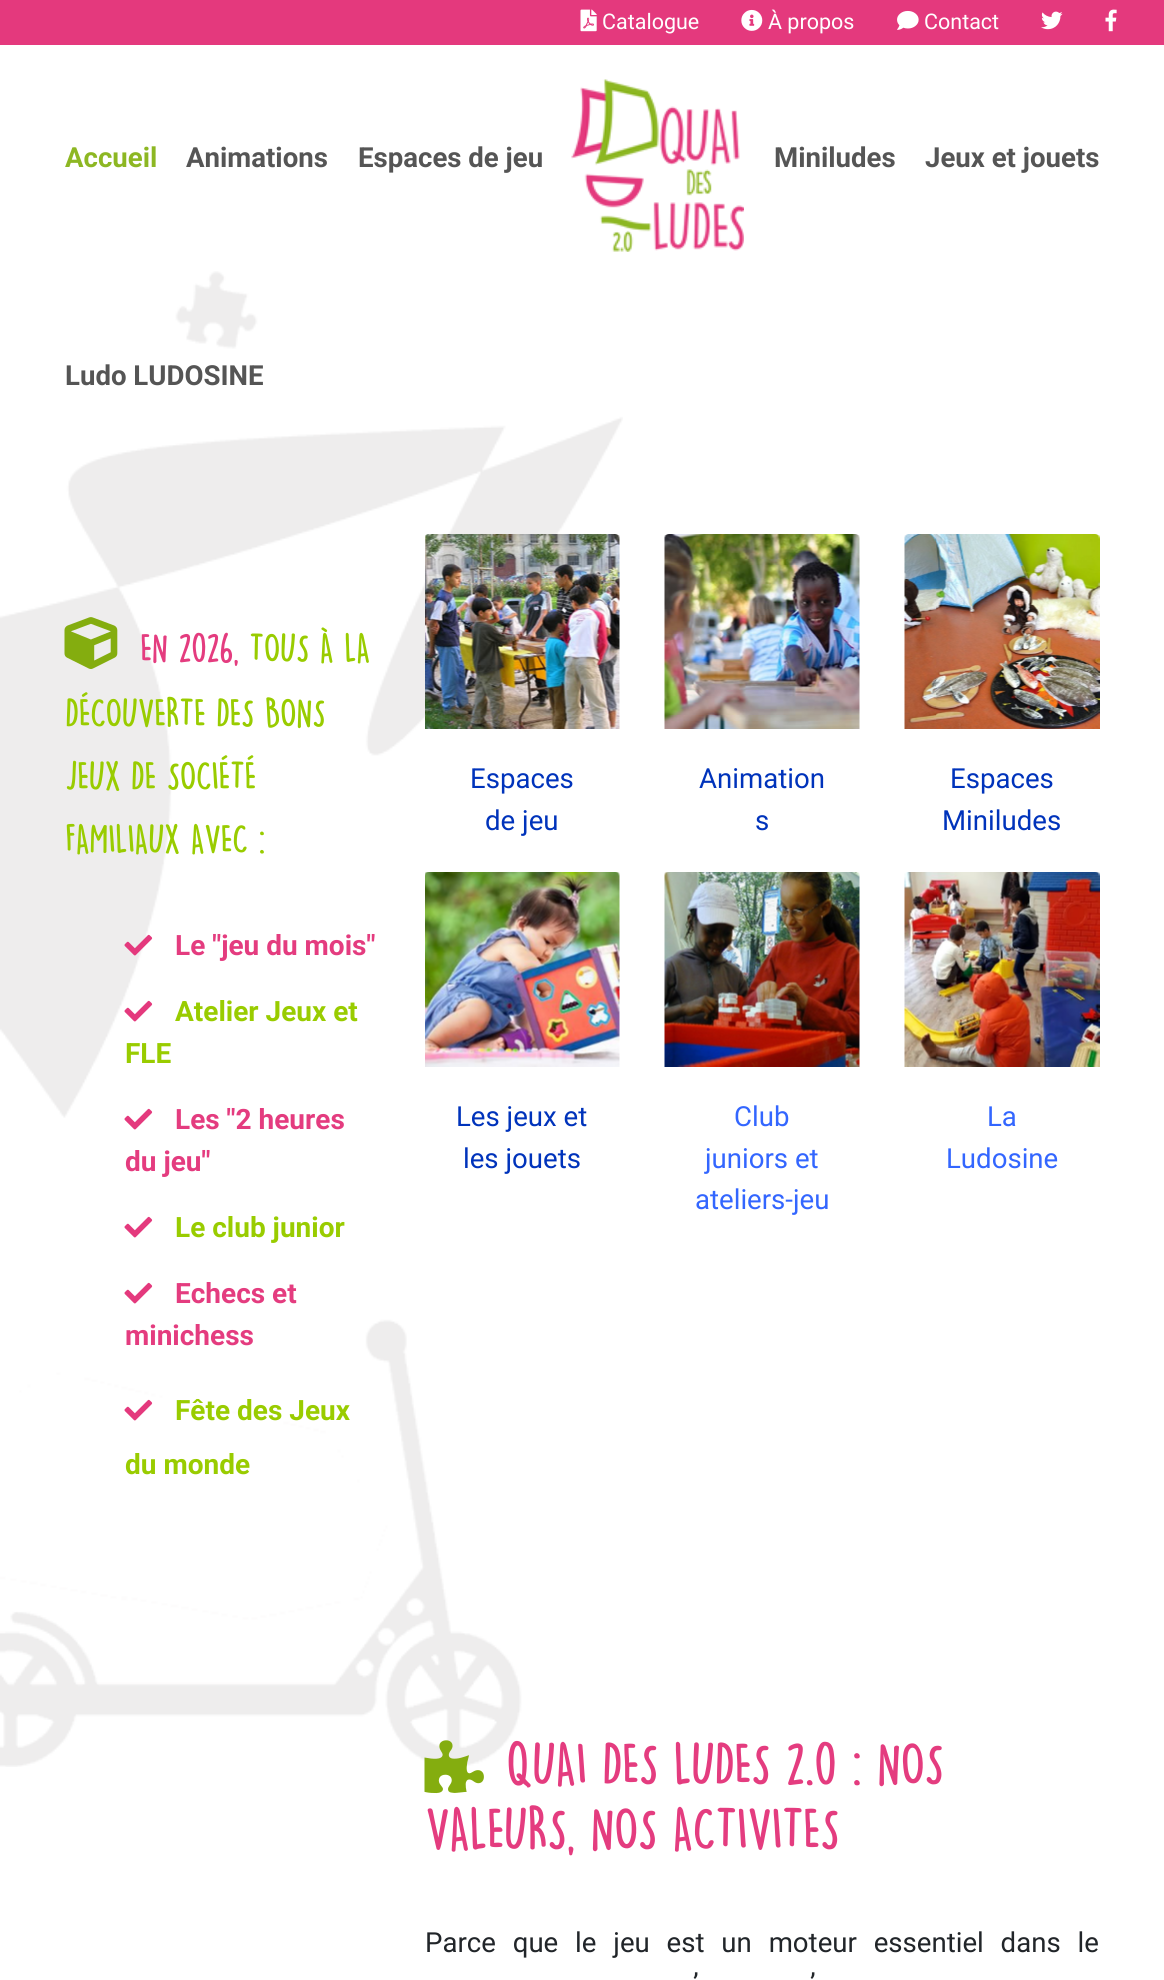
#include <cairo.h>
#include <math.h>
#include <stddef.h>

typedef struct { const char *family; double size; int italic, bold; unsigned color; } style_t;
static cairo_t *ctx;

static void ink(unsigned color) {
    cairo_set_source_rgb(ctx, (color >> 16) / 255.0, (color >> 8 & 255) / 255.0, (color & 255) / 255.0);
}

static void write(double x, double y, const char *s, const style_t *st) {
    cairo_select_font_face(ctx, st->family, st->italic ? CAIRO_FONT_SLANT_ITALIC : CAIRO_FONT_SLANT_NORMAL,
        st->bold ? CAIRO_FONT_WEIGHT_BOLD : CAIRO_FONT_WEIGHT_NORMAL);
    cairo_set_font_size(ctx, st->size);
    ink(st->color);
    cairo_move_to(ctx, x, y);
    cairo_show_text(ctx, s);
}

static void write_spaced(double x, double y, const char *s, double letter, double word) {
    cairo_move_to(ctx, x, y);
    while (*s) {
        char ch[5] = {0};
        int n = 0;
        do ch[n++] = *s++; while ((*s & 0xC0) == 0x80);
        cairo_show_text(ctx, ch);
        cairo_rel_move_to(ctx, letter + word * (*ch == ' '), 0);
    }
}

static void block(double x, double y, double w, double h, unsigned color) {
    ink(color);
    cairo_rectangle(ctx, x, y, w, h);
    cairo_fill(ctx);
}

static void paste(const char *path, double x, double y, double w, double h) {
    cairo_surface_t *image = cairo_image_surface_create_from_png(path);
    cairo_save(ctx);
    cairo_set_source_surface(ctx, image, x, y);
    cairo_rectangle(ctx, x, y, w, h);
    cairo_fill(ctx);
    cairo_restore(ctx);
    cairo_surface_destroy(image);
}

static const style_t s1 = {"Roboto", 21.5, 0, 0, 0xffffff};
static const style_t s2 = {"Roboto", 27.6, 0, 1, 0x8db723};
static const style_t s3 = {"Roboto", 27.6, 0, 1, 0x555555};
static const style_t s4 = {"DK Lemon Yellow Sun", 36, 0, 1, 0xe43c7f};
static const style_t s5 = {"DK Lemon Yellow Sun", 36, 0, 1, 0x99cc00};
static const style_t s6 = {"Roboto", 28, 0, 1, 0xe43c7f};
static const style_t s7 = {"Roboto", 28, 0, 1, 0x99cc00};
static const style_t s8 = {"Roboto", 27.6, 0, 0, 0x0033bb};
static const style_t s9 = {"Roboto", 27.6, 0, 0, 0x3366ff};
static const style_t s10 = {"DK Lemon Yellow Sun", 52.75, 0, 1, 0xe43c7f};

int main(void) {
    cairo_surface_t *surface = cairo_image_surface_create(CAIRO_FORMAT_RGB24, 1164, 1980);
    ctx = cairo_create(surface);
    cairo_font_options_t *options = cairo_font_options_create();
    cairo_font_options_set_hint_metrics(options, CAIRO_HINT_METRICS_OFF);
    cairo_font_options_set_hint_style(options, CAIRO_HINT_STYLE_NONE);
    cairo_set_font_options(ctx, options);
    cairo_set_miter_limit(ctx, 4);
    ink(0xffffff);
    cairo_paint(ctx);
    paste("pic1.png", 0, 271, 623, 1496);
    block(0, 0, 1164, 45, 0xe4397d);
    paste("pic2.png", 580, 9, 17, 23);
    write(602, 29, "Catalogue", &s1);
    paste("pic3.png", 741, 9, 22, 22);
    write(768, 29, "À propos", &s1);
    paste("pic4.png", 897, 10, 22, 20);
    write(924, 29, "Contact", &s1);
    paste("pic5.png", 1041, 11, 22, 19);
    paste("pic6.png", 1105, 9, 12, 23);
    write(65, 167, "Accueil", &s2);
    write(186, 167, "Animations", &s3);
    write(358, 167, "Espaces de jeu", &s3);
    paste("pic7.png", 571, 79, 173, 173);
    write(774, 167, "Miniludes", &s3);
    write(925, 167, "Jeux et jouets", &s3);
    write(65, 385, "Ludo LUDOSINE", &s3);
    paste("pic8.png", 64, 617, 54, 52);
    write(140, 663, "EN 2026,", &s4);
    write(249, 663, "TOUS À LA", &s5);
    write(65, 728, "DÉCOUVERTE DES BONS", &s5);
    write(65, 791, "JEUX DE SOCIÉTÉ", &s5);
    write(65, 854, "FAMILIAUX AVEC :", &s5);
    paste("pic9.png", 124, 934, 29, 22);
    write(175, 955, "Le \"jeu du mois\"", &s6);
    paste("pic10.png", 124, 1000, 29, 22);
    write(175, 1021, "Atelier Jeux et", &s7);
    write(125, 1063, "FLE", &s7);
    paste("pic11.png", 124, 1108, 29, 22);
    write(175, 1129, "Les \"2 heures", &s6);
    write(125, 1171, "du jeu\"", &s6);
    paste("pic11.png", 124, 1216, 29, 22);
    write(175, 1237, "Le club junior", &s7);
    paste("pic11.png", 124, 1282, 29, 22);
    write(175, 1303, "Echecs et", &s6);
    write(125, 1345, "minichess", &s6);
    paste("pic11.png", 124, 1399, 29, 22);
    write(175, 1420, "Fête des Jeux", &s7);
    write(125, 1474, "du monde", &s7);
    paste("pic12.png", 425, 534, 195, 195);
    write(470, 788, "Espaces", &s8);
    write(485, 830, "de jeu", &s8);
    paste("pic13.png", 664, 534, 196, 195);
    write(699, 788, "Animation", &s8);
    write(755, 830, "s", &s8);
    paste("pic14.png", 904, 534, 196, 195);
    write(950, 788, "Espaces", &s8);
    write(942, 830, "Miniludes", &s8);
    paste("pic15.png", 425, 872, 195, 195);
    write(456, 1126, "Les jeux et", &s8);
    write(463, 1168, "les jouets", &s8);
    paste("pic16.png", 664, 872, 196, 195);
    write(734, 1126, "Club", &s9);
    write(705, 1168, "juniors et", &s9);
    write(695, 1209, "ateliers-jeu", &s9);
    paste("pic17.png", 904, 872, 196, 195);
    write(987, 1126, "La", &s9);
    write(946, 1168, "Ludosine", &s9);
    paste("pic18.png", 424, 1740, 60, 54);
    write(506, 1786, "QUAI DES LUDES 2.0 : NOS", &s10);
    write(425, 1851, "VALEURS, NOS ACTIVITES", &s10);
    cairo_select_font_face(ctx, "Roboto", CAIRO_FONT_SLANT_NORMAL, CAIRO_FONT_WEIGHT_NORMAL);
    cairo_set_font_size(ctx, 27.6);
    ink(0x212529);
    write_spaced(425, 1952, "Parce que le jeu est un moteur essentiel dans le", 0, 10);
    write_spaced(693, 1993, "’", 0, 14);
    write_spaced(810, 1993, "’", 0, 14);
    cairo_surface_write_to_png(surface, "screenshot.png");
    cairo_font_options_destroy(options);
    cairo_destroy(ctx);
    cairo_surface_destroy(surface);
    return 0;
}
